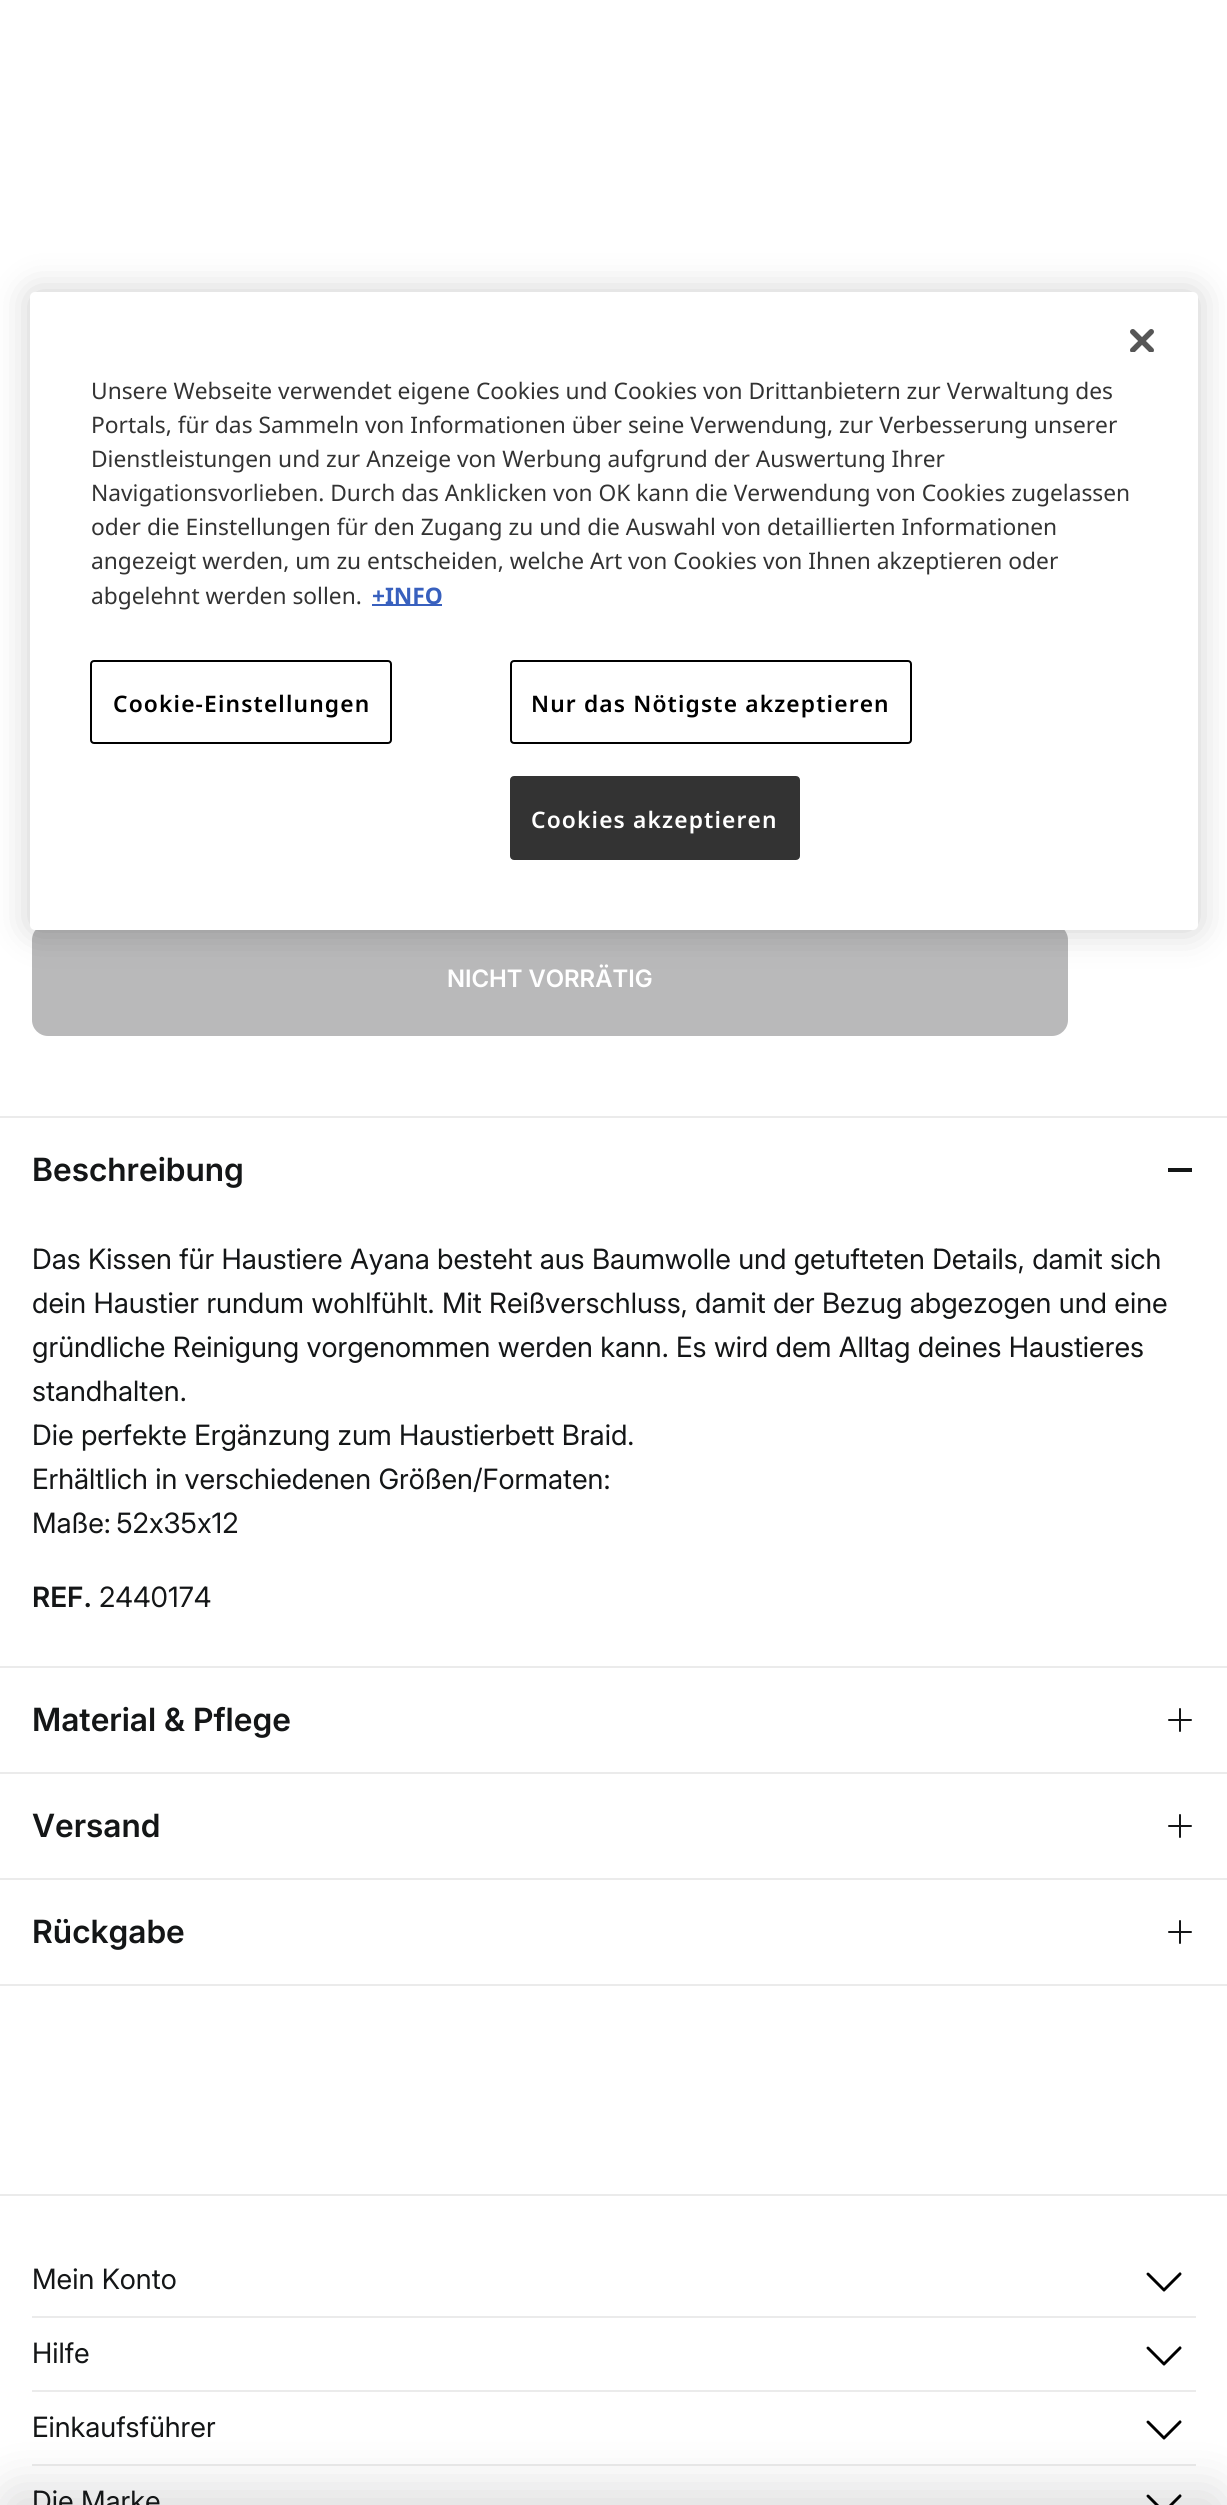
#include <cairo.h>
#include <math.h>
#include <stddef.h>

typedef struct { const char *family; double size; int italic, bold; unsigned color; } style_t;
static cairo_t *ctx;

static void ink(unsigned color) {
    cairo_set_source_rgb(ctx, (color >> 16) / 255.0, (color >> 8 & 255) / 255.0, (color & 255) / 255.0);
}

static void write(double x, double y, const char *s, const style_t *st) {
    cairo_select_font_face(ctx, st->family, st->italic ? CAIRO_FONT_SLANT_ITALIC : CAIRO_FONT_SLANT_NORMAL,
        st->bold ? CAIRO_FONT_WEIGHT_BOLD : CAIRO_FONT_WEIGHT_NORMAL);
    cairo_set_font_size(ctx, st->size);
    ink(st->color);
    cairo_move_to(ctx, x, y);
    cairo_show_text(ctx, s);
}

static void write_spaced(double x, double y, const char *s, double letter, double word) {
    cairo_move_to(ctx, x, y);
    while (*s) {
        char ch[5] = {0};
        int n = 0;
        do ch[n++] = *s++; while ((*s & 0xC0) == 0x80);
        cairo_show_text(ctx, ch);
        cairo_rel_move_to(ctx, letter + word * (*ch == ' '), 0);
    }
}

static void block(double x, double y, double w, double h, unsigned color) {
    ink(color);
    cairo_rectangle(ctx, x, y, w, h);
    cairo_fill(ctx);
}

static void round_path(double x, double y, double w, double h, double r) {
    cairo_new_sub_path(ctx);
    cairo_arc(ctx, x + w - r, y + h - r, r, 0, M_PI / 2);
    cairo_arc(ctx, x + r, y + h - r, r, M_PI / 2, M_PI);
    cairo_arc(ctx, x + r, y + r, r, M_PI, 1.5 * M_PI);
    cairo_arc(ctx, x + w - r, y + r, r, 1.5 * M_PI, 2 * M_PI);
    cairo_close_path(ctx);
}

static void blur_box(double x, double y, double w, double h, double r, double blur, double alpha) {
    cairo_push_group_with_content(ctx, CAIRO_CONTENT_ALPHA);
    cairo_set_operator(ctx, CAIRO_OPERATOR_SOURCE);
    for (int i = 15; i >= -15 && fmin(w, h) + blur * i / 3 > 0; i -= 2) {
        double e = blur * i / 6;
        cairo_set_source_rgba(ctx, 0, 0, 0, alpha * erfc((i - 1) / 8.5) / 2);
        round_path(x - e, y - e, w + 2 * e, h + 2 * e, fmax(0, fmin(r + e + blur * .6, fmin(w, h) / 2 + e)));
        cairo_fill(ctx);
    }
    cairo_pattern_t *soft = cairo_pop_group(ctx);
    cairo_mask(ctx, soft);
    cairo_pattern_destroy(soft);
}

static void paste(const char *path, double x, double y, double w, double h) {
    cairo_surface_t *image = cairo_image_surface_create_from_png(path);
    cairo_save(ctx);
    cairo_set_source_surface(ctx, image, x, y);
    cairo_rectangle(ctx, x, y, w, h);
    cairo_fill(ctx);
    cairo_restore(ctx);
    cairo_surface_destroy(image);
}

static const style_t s1 = {"Noto Sans", 22.75, 0, 0, 0x333333};
static const style_t s2 = {"Noto Sans", 22.75, 0, 1, 0x3860be};
static const style_t s3 = {"Inter SemiBold", 24, 0, 0, 0xffffff};
static const style_t s4 = {"Inter SemiBold", 32, 0, 0, 0x141617};
static const style_t s5 = {"Inter", 28, 0, 0, 0x141617};
static const style_t s6 = {"Inter SemiBold", 28, 0, 0, 0x141617};

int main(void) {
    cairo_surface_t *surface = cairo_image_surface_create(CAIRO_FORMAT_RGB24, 1227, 2505);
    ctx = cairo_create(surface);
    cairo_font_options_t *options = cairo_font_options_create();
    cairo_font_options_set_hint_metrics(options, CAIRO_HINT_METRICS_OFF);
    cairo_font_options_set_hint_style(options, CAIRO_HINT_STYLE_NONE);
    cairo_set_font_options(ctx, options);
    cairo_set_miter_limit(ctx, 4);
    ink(0xffffff);
    cairo_paint(ctx);
    ink(0xb9b9ba);
    round_path(32, 924, 1036, 112, 16);
    cairo_fill(ctx);
    ink(0x000000);
    blur_box(30, 292, 1168, 638, 5, 18, 0.2);
    ink(0xffffff);
    round_path(30, 292, 1168, 638, 5);
    cairo_fill(ctx);
    paste("pic1.png", 1130, 329, 24, 23);
    write(91, 399, "Unsere Webseite verwendet eigene Cookies und Cookies von Drittanbietern zur Verwaltung des", &s1);
    write(91, 433, "Portals, für das Sammeln von Informationen über seine Verwendung, zur Verbesserung unserer", &s1);
    write(91, 467, "Dienstleistungen und zur Anzeige von Werbung aufgrund der Auswertung Ihrer", &s1);
    write(91, 501, "Navigationsvorlieben. Durch das Anklicken von OK kann die Verwendung von Cookies zugelassen", &s1);
    write(91, 535, "oder die Einstellungen für den Zugang zu und die Auswahl von detaillierten Informationen", &s1);
    write(91, 569, "angezeigt werden, um zu entscheiden, welche Art von Cookies von Ihnen akzeptieren oder", &s1);
    write(91, 604, "abgelehnt werden sollen.", &s1);
    block(372, 604, 70, 2, 0x3860be);
    write(372, 604, "+INFO", &s2);
    round_path(91, 661, 300, 82, 3);
    ink(0x000000);
    cairo_stroke(ctx);
    cairo_select_font_face(ctx, "Noto Sans SemiBold", CAIRO_FONT_SLANT_NORMAL, CAIRO_FONT_WEIGHT_NORMAL);
    write_spaced(113, 712, "Cookie-Einstellungen", 1.15, 0);
    round_path(511, 661, 400, 82, 3);
    cairo_stroke(ctx);
    write_spaced(531, 712, "Nur das Nötigste akzeptieren", 1.15, 0);
    ink(0x333333);
    round_path(511, 777, 288, 82, 3);
    cairo_fill_preserve(ctx);
    cairo_stroke(ctx);
    ink(0xffffff);
    write_spaced(531, 828, "Cookies akzeptieren", 1.15, 0);
    write(447, 987, "NICHT VORRÄTIG", &s3);
    block(0, 1116, 1227, 2, 0xebebeb);
    block(0, 1666, 1227, 2, 0xebebeb);
    write(32, 1181, "Beschreibung", &s4);
    block(1168, 1168, 24, 4, 0x141617);
    write(32, 1269, "Das Kissen für Haustiere Ayana besteht aus Baumwolle und getufteten Details, damit sich", &s5);
    write(32, 1313, "dein Haustier rundum wohlfühlt. Mit Reißverschluss, damit der Bezug abgezogen und eine", &s5);
    write(32, 1357, "gründliche Reinigung vorgenommen werden kann. Es wird dem Alltag deines Haustieres", &s5);
    write(32, 1401, "standhalten.", &s5);
    write(32, 1445, "Die perfekte Ergänzung zum Haustierbett Braid.", &s5);
    write(32, 1489, "Erhältlich in verschiedenen Größen/Formaten:", &s5);
    write_spaced(32, 1533, "Maße: 52x35x12", 0, -2);
    write(32, 1607, "REF.", &s6);
    write(99, 1607, "2440174", &s5);
    block(0, 1772, 1227, 2, 0xebebeb);
    write(32, 1731, "Material & Pflege", &s4);
    paste("pic3.png", 1168, 1719, 24, 2);
    paste("pic2.png", 1179, 1708, 2, 24);
    block(0, 1878, 1227, 2, 0xebebeb);
    write(32, 1837, "Versand", &s4);
    paste("pic3.png", 1168, 1825, 24, 2);
    paste("pic2.png", 1179, 1814, 2, 24);
    block(0, 1984, 1227, 2, 0xebebeb);
    write(32, 1943, "Rückgabe", &s4);
    paste("pic3.png", 1168, 1931, 24, 2);
    paste("pic2.png", 1179, 1920, 2, 24);
    block(32, 2464, 1164, 2, 0xebebeb);
    paste("pic4.png", 1146, 2420, 36, 20);
    paste("pic5.png", 1146, 2494, 36, 11);
    ink(0x141617);
    blur_box(0, 2486, 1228, 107, 16, 24, 0.14);
    block(0, 2194, 1227, 2, 0xebebeb);
    block(32, 2316, 1164, 2, 0xebebeb);
    write(32, 2289, "Mein Konto", &s5);
    paste("pic4.png", 1146, 2272, 36, 20);
    block(32, 2390, 1164, 2, 0xebebeb);
    write(32, 2363, "Hilfe", &s5);
    paste("pic4.png", 1146, 2346, 36, 20);
    write(32, 2437, "Einkaufsführer", &s5);
    write(32, 2511, "Die Marke", &s5);
    cairo_surface_write_to_png(surface, "screenshot.png");
    cairo_font_options_destroy(options);
    cairo_destroy(ctx);
    cairo_surface_destroy(surface);
    return 0;
}
